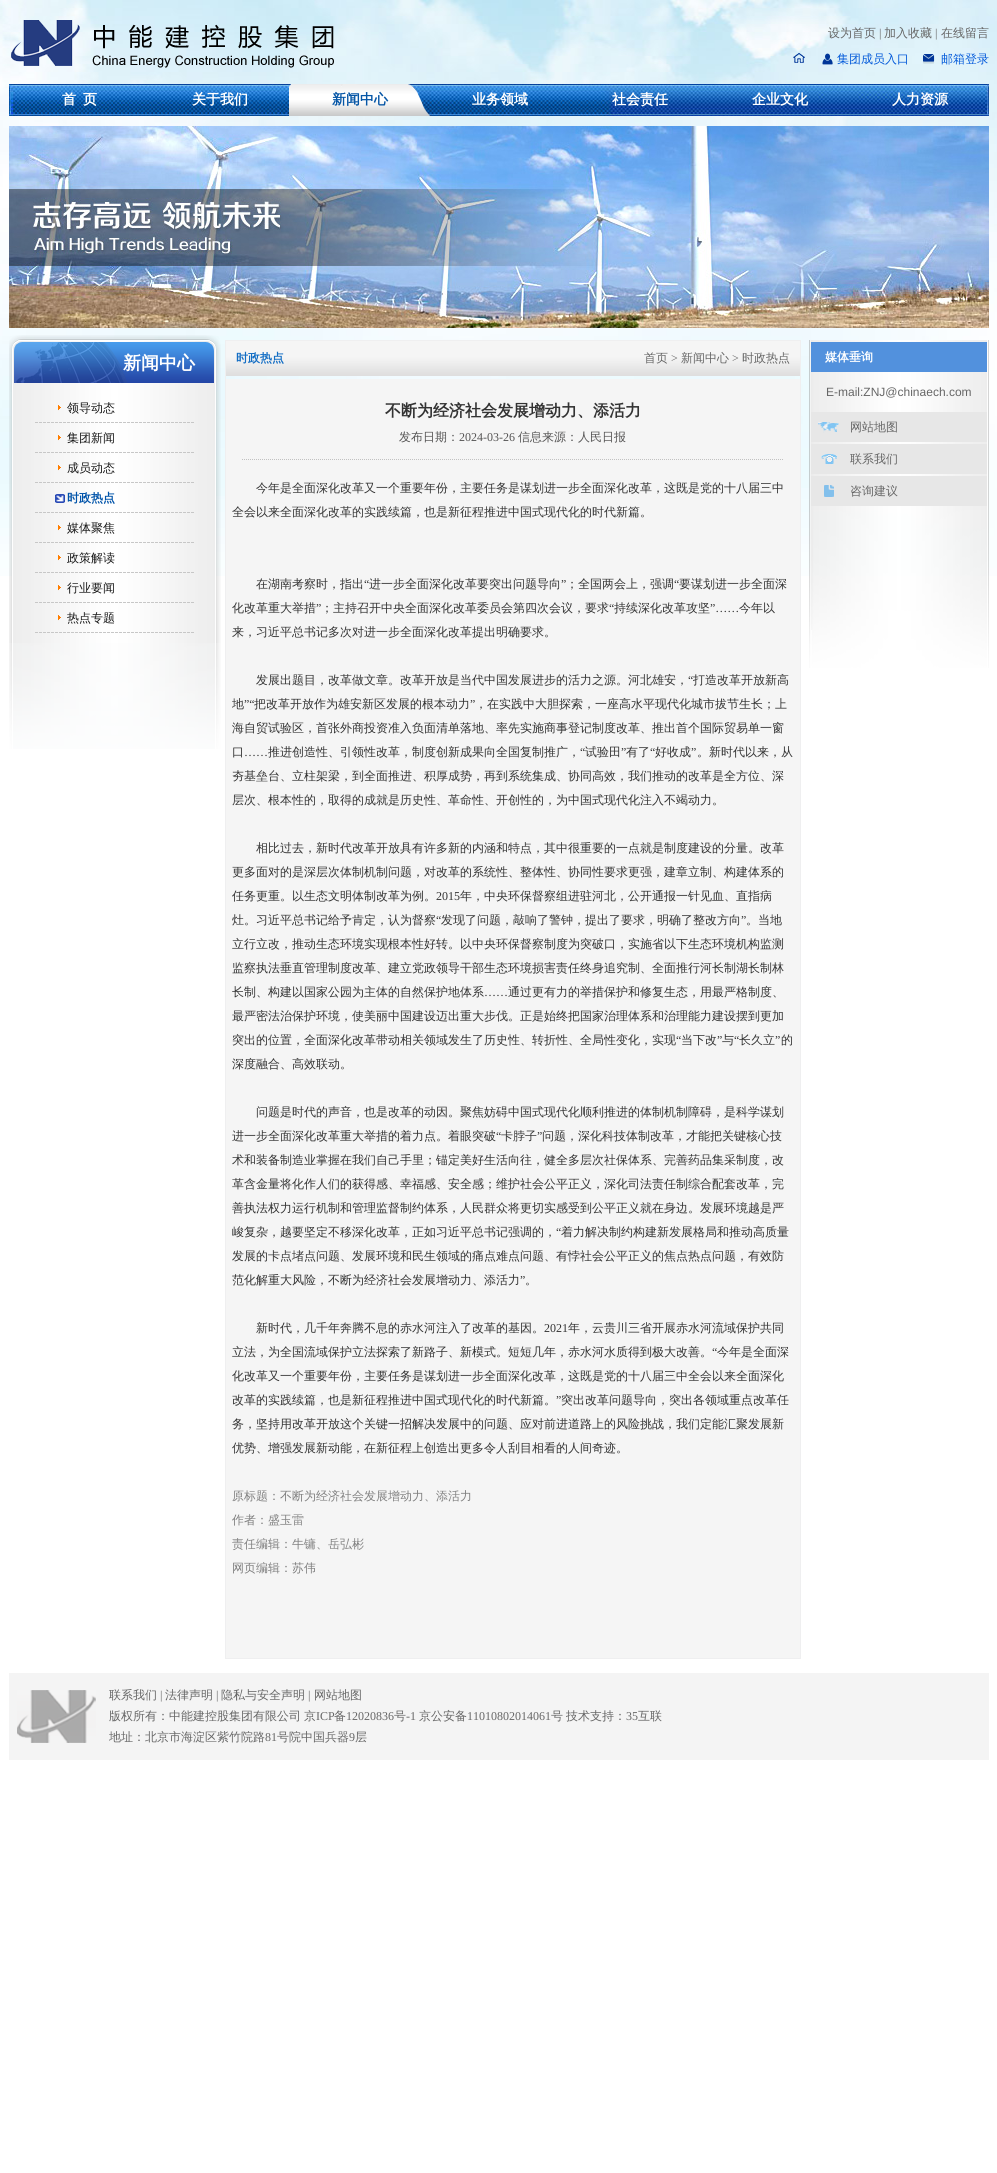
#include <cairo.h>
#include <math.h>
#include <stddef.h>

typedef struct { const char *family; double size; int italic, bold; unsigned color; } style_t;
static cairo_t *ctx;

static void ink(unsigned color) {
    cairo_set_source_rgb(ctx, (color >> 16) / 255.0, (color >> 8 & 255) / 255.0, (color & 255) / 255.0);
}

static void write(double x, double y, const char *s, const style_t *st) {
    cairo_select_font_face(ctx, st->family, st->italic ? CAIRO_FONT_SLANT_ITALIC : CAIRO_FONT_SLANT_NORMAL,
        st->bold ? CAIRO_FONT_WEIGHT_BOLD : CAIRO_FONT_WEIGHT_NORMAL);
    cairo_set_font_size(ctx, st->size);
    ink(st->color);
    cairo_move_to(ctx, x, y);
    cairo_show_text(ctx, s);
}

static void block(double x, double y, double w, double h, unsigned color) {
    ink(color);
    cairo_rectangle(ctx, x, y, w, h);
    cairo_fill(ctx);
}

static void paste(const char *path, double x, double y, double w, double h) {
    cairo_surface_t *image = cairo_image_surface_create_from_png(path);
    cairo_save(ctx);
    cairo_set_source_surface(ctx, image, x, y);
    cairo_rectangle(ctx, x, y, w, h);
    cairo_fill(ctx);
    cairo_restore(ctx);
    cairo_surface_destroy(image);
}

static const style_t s1 = {"WenQuanYi Zen Hei Medium", 12, 0, 0, 0x666666};
static const style_t s2 = {"Liberation Serif", 12, 0, 0, 0x666666};
static const style_t s3 = {"WenQuanYi Zen Hei Medium", 12, 0, 0, 0x035ada};
static const style_t s4 = {"WenQuanYi Zen Hei", 14, 0, 1, 0xffffff};
static const style_t s5 = {"WenQuanYi Zen Hei", 14, 0, 1, 0x0656a6};
static const style_t s6 = {"WenQuanYi Zen Hei", 18, 0, 1, 0xffffff};
static const style_t s7 = {"WenQuanYi Zen Hei Medium", 12, 0, 0, 0x171717};
static const style_t s8 = {"WenQuanYi Zen Hei", 12, 0, 1, 0x0053a9};
static const style_t s9 = {"WenQuanYi Zen Hei", 12, 0, 1, 0x146ec4};
static const style_t s10 = {"WenQuanYi Zen Hei", 16, 0, 1, 0x333333};
static const style_t s11 = {"WenQuanYi Zen Hei Medium", 12, 0, 0, 0x555454};
static const style_t s12 = {"Liberation Serif", 12, 0, 0, 0x555454};
static const style_t s13 = {"WenQuanYi Zen Hei Medium", 12, 0, 0, 0x333333};
static const style_t s14 = {"Liberation Serif", 12, 0, 0, 0x333333};
static const style_t s15 = {"WenQuanYi Zen Hei Medium", 12, 0, 0, 0x808080};
static const style_t s16 = {"WenQuanYi Zen Hei", 12, 0, 1, 0xffffff};
static const style_t s17 = {"Liberation Sans", 12, 0, 0, 0x666666};

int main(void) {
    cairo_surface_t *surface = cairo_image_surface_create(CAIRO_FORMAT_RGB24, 997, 2173);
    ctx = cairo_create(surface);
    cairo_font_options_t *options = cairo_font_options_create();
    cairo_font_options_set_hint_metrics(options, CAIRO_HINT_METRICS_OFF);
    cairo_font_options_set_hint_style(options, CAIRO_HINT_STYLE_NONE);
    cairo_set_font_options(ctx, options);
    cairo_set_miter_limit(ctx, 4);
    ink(0xffffff);
    cairo_paint(ctx);
    paste("pic1.png", 0, 0, 997, 576);
    paste("pic2.png", 11, 20, 323, 48);
    write(828, 37, "设为首页", &s1);
    write(879, 37, "|", &s2);
    write(884, 37, "加入收藏", &s1);
    write(935, 37, "|", &s2);
    write(941, 37, "在线留言", &s1);
    paste("pic3.png", 793, 53, 12, 10);
    paste("pic4.png", 822, 53, 11, 12);
    write(837, 63, "集团成员入口", &s3);
    paste("pic5.png", 923, 54, 12, 10);
    write(941, 63, "邮箱登录", &s3);
    paste("pic6.png", 9, 84, 980, 32);
    write(62, 104, "首", &s4);
    write(83, 104, "页", &s4);
    write(192, 104, "关于我们", &s4);
    paste("pic7.png", 289, 84, 142, 32);
    write(332, 104, "新闻中心", &s5);
    write(472, 104, "业务领域", &s4);
    write(612, 104, "社会责任", &s4);
    write(752, 104, "企业文化", &s4);
    write(892, 104, "人力资源", &s4);
    paste("pic8.png", 9, 126, 980, 202);
    paste("pic9.png", 9, 643, 212, 106);
    paste("pic10.png", 9, 335, 212, 48);
    write(123, 369, "新闻中心", &s6);
    paste("pic11.png", 9, 383, 212, 260);
    paste("pic12.png", 35, 422, 159, 1);
    paste("pic13.png", 58, 405, 3, 6);
    write(67, 412, "领导动态", &s7);
    paste("pic12.png", 35, 452, 159, 1);
    paste("pic13.png", 58, 435, 3, 6);
    write(67, 442, "集团新闻", &s7);
    paste("pic12.png", 35, 482, 159, 1);
    paste("pic13.png", 58, 465, 3, 6);
    write(67, 472, "成员动态", &s7);
    paste("pic12.png", 35, 512, 159, 1);
    paste("pic14.png", 55, 494, 10, 9);
    write(67, 502, "时政热点", &s8);
    paste("pic12.png", 35, 542, 159, 1);
    paste("pic13.png", 58, 525, 3, 6);
    write(67, 532, "媒体聚焦", &s7);
    paste("pic12.png", 35, 572, 159, 1);
    paste("pic13.png", 58, 555, 3, 6);
    write(67, 562, "政策解读", &s7);
    paste("pic12.png", 35, 602, 159, 1);
    paste("pic13.png", 58, 585, 3, 6);
    write(67, 592, "行业要闻", &s7);
    paste("pic12.png", 35, 632, 159, 1);
    paste("pic13.png", 58, 615, 3, 6);
    write(67, 622, "热点专题", &s7);
    cairo_rectangle(ctx, 225.5, 340.5, 575, 1318);
    ink(0xefeff0);
    cairo_set_line_width(ctx, 1);
    cairo_stroke(ctx);
    paste("pic15.png", 226, 341, 574, 35);
    write(236, 362, "时政热点", &s9);
    write(644, 362, "首页", &s1);
    write(671, 362, ">", &s2);
    write(681, 362, "新闻中心", &s1);
    write(732, 362, ">", &s2);
    write(742, 362, "时政热点", &s1);
    block(226, 379, 574, 1279, 0xf5f5f5);
    write(385, 416, "不断为经济社会发展增动力、添活力", &s10);
    cairo_new_path(ctx);
    cairo_move_to(ctx, 242, 459.5);
    cairo_line_to(ctx, 784, 459.5);
    ink(0xc1c1c1);
    cairo_set_dash(ctx, (double[]){1, 1}, 2, 0);
    cairo_stroke(ctx);
    write(399, 441, "发布日期：", &s11);
    write(459, 441, "2024-03-26", &s12);
    write(518, 441, "信息来源：人民日报", &s11);
    write(256, 492, "今年是全面深化改革又一个重要年份，主要任务是谋划进一步全面深化改革，这既是党的十八届三中", &s13);
    write(232, 516, "全会以来全面深化改革的实践续篇，也是新征程推进中国式现代化的时代新篇。", &s13);
    write(256, 588, "在湖南考察时，指出", &s13);
    write(364, 588, "“", &s14);
    write(369, 588, "进一步全面深化改革要突出问题导向", &s13);
    write(561, 588, "”", &s14);
    write(566, 588, "；全国两会上，强调", &s13);
    write(674, 588, "“", &s14);
    write(679, 588, "要谋划进一步全面深", &s13);
    write(232, 612, "化改革重大举措", &s13);
    write(316, 612, "”", &s14);
    write(321, 612, "；主持召开中央全面深化改革委员会第四次会议，要求", &s13);
    write(609, 612, "“", &s14);
    write(614, 612, "持续深化改革攻坚", &s13);
    write(710, 612, "”……", &s14);
    write(739, 612, "今年以", &s13);
    write(232, 636, "来，习近平总书记多次对进一步全面深化改革提出明确要求。", &s13);
    write(256, 684, "发展出题目，改革做文章。改革开放是当代中国发展进步的活力之源。河北雄安，", &s13);
    write(688, 684, "“", &s14);
    write(693, 684, "打造改革开放新高", &s13);
    cairo_save(ctx);
    cairo_rectangle(ctx, 232, 460, 562, 1160);
    cairo_clip(ctx);
    write(232, 708, "地", &s13);
    cairo_restore(ctx);
    write(244, 708, "”“", &s14);
    write(254, 708, "把改革开放作为雄安新区发展的根本动力", &s13);
    write(470, 708, "”", &s14);
    write(475, 708, "，在实践中大胆探索，一座高水平现代化城市拔节生长；上", &s13);
    write(232, 732, "海自贸试验区，首张外商投资准入负面清单落地、率先实施商事登记制度改革、推出首个国际贸易单一窗", &s13);
    write(232, 756, "口", &s13);
    write(268, 756, "推进创造性、引领性改革，制度创新成果向全国复制推广，", &s13);
    write(580, 756, "“", &s14);
    write(585, 756, "试验田", &s13);
    write(621, 756, "”", &s14);
    write(626, 756, "有了", &s13);
    write(650, 756, "“", &s14);
    write(655, 756, "好收成", &s13);
    write(691, 756, "”", &s14);
    write(697, 756, "。新时代以来，从", &s13);
    write(244, 756, "……", &s14);
    write(232, 780, "夯基垒台、立柱架梁，到全面推进、积厚成势，再到系统集成、协同高效，我们推动的改革是全方位、深", &s13);
    write(232, 804, "层次、根本性的，取得的成就是历史性、革命性、开创性的，为中国式现代化注入不竭动力。", &s13);
    write(256, 852, "相比过去，新时代改革开放具有许多新的内涵和特点，其中很重要的一点就是制度建设的分量。改革", &s13);
    write(232, 876, "更多面对的是深层次体制机制问题，对改革的系统性、整体性、协同性要求更强，建章立制、构建体系的", &s13);
    write(232, 900, "任务更重。以生态文明体制改革为例。", &s13);
    write(436, 900, "2015", &s14);
    write(460, 900, "年，中央环保督察组进驻河北，公开通报一针见血、直指病", &s13);
    write(232, 924, "灶。习近平总书记给予肯定，认为督察", &s13);
    write(436, 924, "“", &s14);
    write(441, 924, "发现了问题，敲响了警钟，提出了要求，明确了整改方向", &s13);
    write(741, 924, "”", &s14);
    write(746, 924, "。当地", &s13);
    write(232, 948, "立行立改，推动生态环境实现根本性好转。以中央环保督察制度为突破口，实施省以下生态环境机构监测", &s13);
    write(232, 972, "监察执法垂直管理制度改革、建立党政领导干部生态环境损害责任终身追究制、全面推行河长制湖长制林", &s13);
    write(232, 996, "长制、构建以国家公园为主体的自然保护地体系", &s13);
    write(484, 996, "……", &s14);
    write(508, 996, "通过更有力的举措保护和修复生态，用最严格制度、", &s13);
    write(232, 1020, "最严密法治保护环境，使美丽中国建设迈出重大步伐。正是始终把国家治理体系和治理能力建设摆到更加", &s13);
    write(232, 1044, "突出的位置，全面深化改革带动相关领域发生了历史性、转折性、全局性变化，实现", &s13);
    write(676, 1044, "“", &s14);
    write(681, 1044, "当下改", &s13);
    write(717, 1044, "”", &s14);
    write(722, 1044, "与", &s13);
    write(734, 1044, "“", &s14);
    write(739, 1044, "长久立", &s13);
    write(775, 1044, "”", &s14);
    write(781, 1044, "的", &s13);
    write(232, 1068, "深度融合、高效联动。", &s13);
    write(256, 1116, "问题是时代的声音，也是改革的动因。聚焦妨碍中国式现代化顺利推进的体制机制障碍，是科学谋划", &s13);
    cairo_save(ctx);
    cairo_rectangle(ctx, 232, 460, 562, 1160);
    cairo_clip(ctx);
    write(232, 1140, "进一步全面深化改革重大举措的着力点。着眼突破", &s13);
    cairo_restore(ctx);
    write(496, 1140, "“", &s14);
    write(501, 1140, "卡脖子", &s13);
    write(537, 1140, "”", &s14);
    write(542, 1140, "问题，深化科技体制改革，才能把关键核心技", &s13);
    write(232, 1164, "术和装备制造业掌握在我们自己手里；锚定美好生活向往，健全多层次社保体系、完善药品集采制度，改", &s13);
    write(232, 1188, "革含金量将化作人们的获得感、幸福感、安全感；维护社会公平正义，深化司法责任制综合配套改革，完", &s13);
    cairo_save(ctx);
    cairo_rectangle(ctx, 232, 460, 562, 1160);
    cairo_clip(ctx);
    write(232, 1212, "善执法权力运行机制和管理监督制约体系，人民群众将更切实感受到公平正义就在身边。发展环境越是严", &s13);
    write(232, 1236, "峻复杂，越要坚定不移深化改革，正如习近平总书记强调的，", &s13);
    cairo_restore(ctx);
    write(556, 1236, "“", &s14);
    write(561, 1236, "着力解决制约构建新发展格局和推动高质量", &s13);
    write(232, 1260, "发展的卡点堵点问题、发展环境和民生领域的痛点难点问题、有悖社会公平正义的焦点热点问题，有效防", &s13);
    write(232, 1284, "范化解重大风险，不断为经济社会发展增动力、添活力", &s13);
    write(520, 1284, "”", &s14);
    write(525, 1284, "。", &s13);
    write(256, 1332, "新时代，几千年奔腾不息的赤水河注入了改革的基因。", &s13);
    write(544, 1332, "2021", &s14);
    write(568, 1332, "年，云贵川三省开展赤水河流域保护共同", &s13);
    write(232, 1356, "立法，为全国流域保护立法探索了新路子、新模式。短短几年，赤水河水质得到极大改善。", &s13);
    write(712, 1356, "“", &s14);
    write(717, 1356, "今年是全面深", &s13);
    write(232, 1380, "化改革又一个重要年份，主要任务是谋划进一步全面深化改革，这既是党的十八届三中全会以来全面深化", &s13);
    write(232, 1404, "改革的实践续篇，也是新征程推进中国式现代化的时代新篇。", &s13);
    write(556, 1404, "”", &s14);
    write(561, 1404, "突出改革问题导向，突出各领域重点改革任", &s13);
    write(232, 1428, "务，坚持用改革开放这个关键一招解决发展中的问题、应对前进道路上的风险挑战，我们定能汇聚发展新", &s13);
    write(232, 1452, "优势、增强发展新动能，在新征程上创造出更多令人刮目相看的人间奇迹。", &s13);
    write(232, 1500, "原标题：不断为经济社会发展增动力、添活力", &s15);
    write(232, 1524, "作者：盛玉雷", &s15);
    write(232, 1548, "责任编辑：牛镛、岳弘彬", &s15);
    write(232, 1572, "网页编辑：苏伟", &s15);
    paste("pic16.png", 809, 510, 180, 158);
    paste("pic17.png", 809, 340, 180, 170);
    block(811, 342, 176, 30, 0x5291dd);
    write(825, 361, "媒体垂询", &s16);
    write(826, 396, "E-mail:ZNJ@chinaech.com", &s17);
    block(811, 412, 176, 30, 0xe7e7e7);
    paste("pic18.png", 818, 422, 21, 11);
    write(850, 431, "网站地图", &s1);
    block(811, 444, 176, 30, 0xe7e7e7);
    paste("pic19.png", 821, 454, 16, 10);
    write(850, 463, "联系我们", &s1);
    block(811, 476, 176, 30, 0xe7e7e7);
    paste("pic20.png", 824, 485, 10, 12);
    write(850, 495, "咨询建议", &s1);
    block(9, 1673, 980, 87, 0xf4f4f4);
    paste("pic21.png", 17, 1690, 79, 53);
    cairo_save(ctx);
    cairo_rectangle(ctx, 109, 1685, 880, 21);
    cairo_clip(ctx);
    write(109, 1699, "联系我们", &s1);
    cairo_restore(ctx);
    write(160, 1699, "|", &s2);
    write(165, 1699, "法律声明", &s1);
    write(216, 1699, "|", &s2);
    write(221, 1699, "隐私与安全声明", &s1);
    write(308, 1699, "|", &s2);
    write(314, 1699, "网站地图", &s1);
    write(109, 1720, "版权所有：中能建控股集团有限公司", &s1);
    write(304, 1720, "京", &s1);
    write(316, 1720, "ICP", &s2);
    write(334, 1720, "备", &s1);
    write(346, 1720, "12020836", &s2);
    write(394, 1720, "号", &s1);
    write(406, 1720, "-1", &s2);
    write(419, 1720, "京公安备", &s1);
    write(467, 1720, "11010802014061", &s2);
    write(551, 1720, "号", &s1);
    write(566, 1720, "技术支持：", &s1);
    write(626, 1720, "35", &s2);
    write(638, 1720, "互联", &s1);
    cairo_save(ctx);
    cairo_rectangle(ctx, 109, 1727, 880, 21);
    cairo_clip(ctx);
    write(109, 1741, "地址：北京市海淀区紫竹院路", &s1);
    cairo_restore(ctx);
    write(265, 1741, "81", &s2);
    write(277, 1741, "号院中国兵器", &s1);
    write(349, 1741, "9", &s2);
    write(355, 1741, "层", &s1);
    cairo_surface_write_to_png(surface, "screenshot.png");
    cairo_font_options_destroy(options);
    cairo_destroy(ctx);
    cairo_surface_destroy(surface);
    return 0;
}
